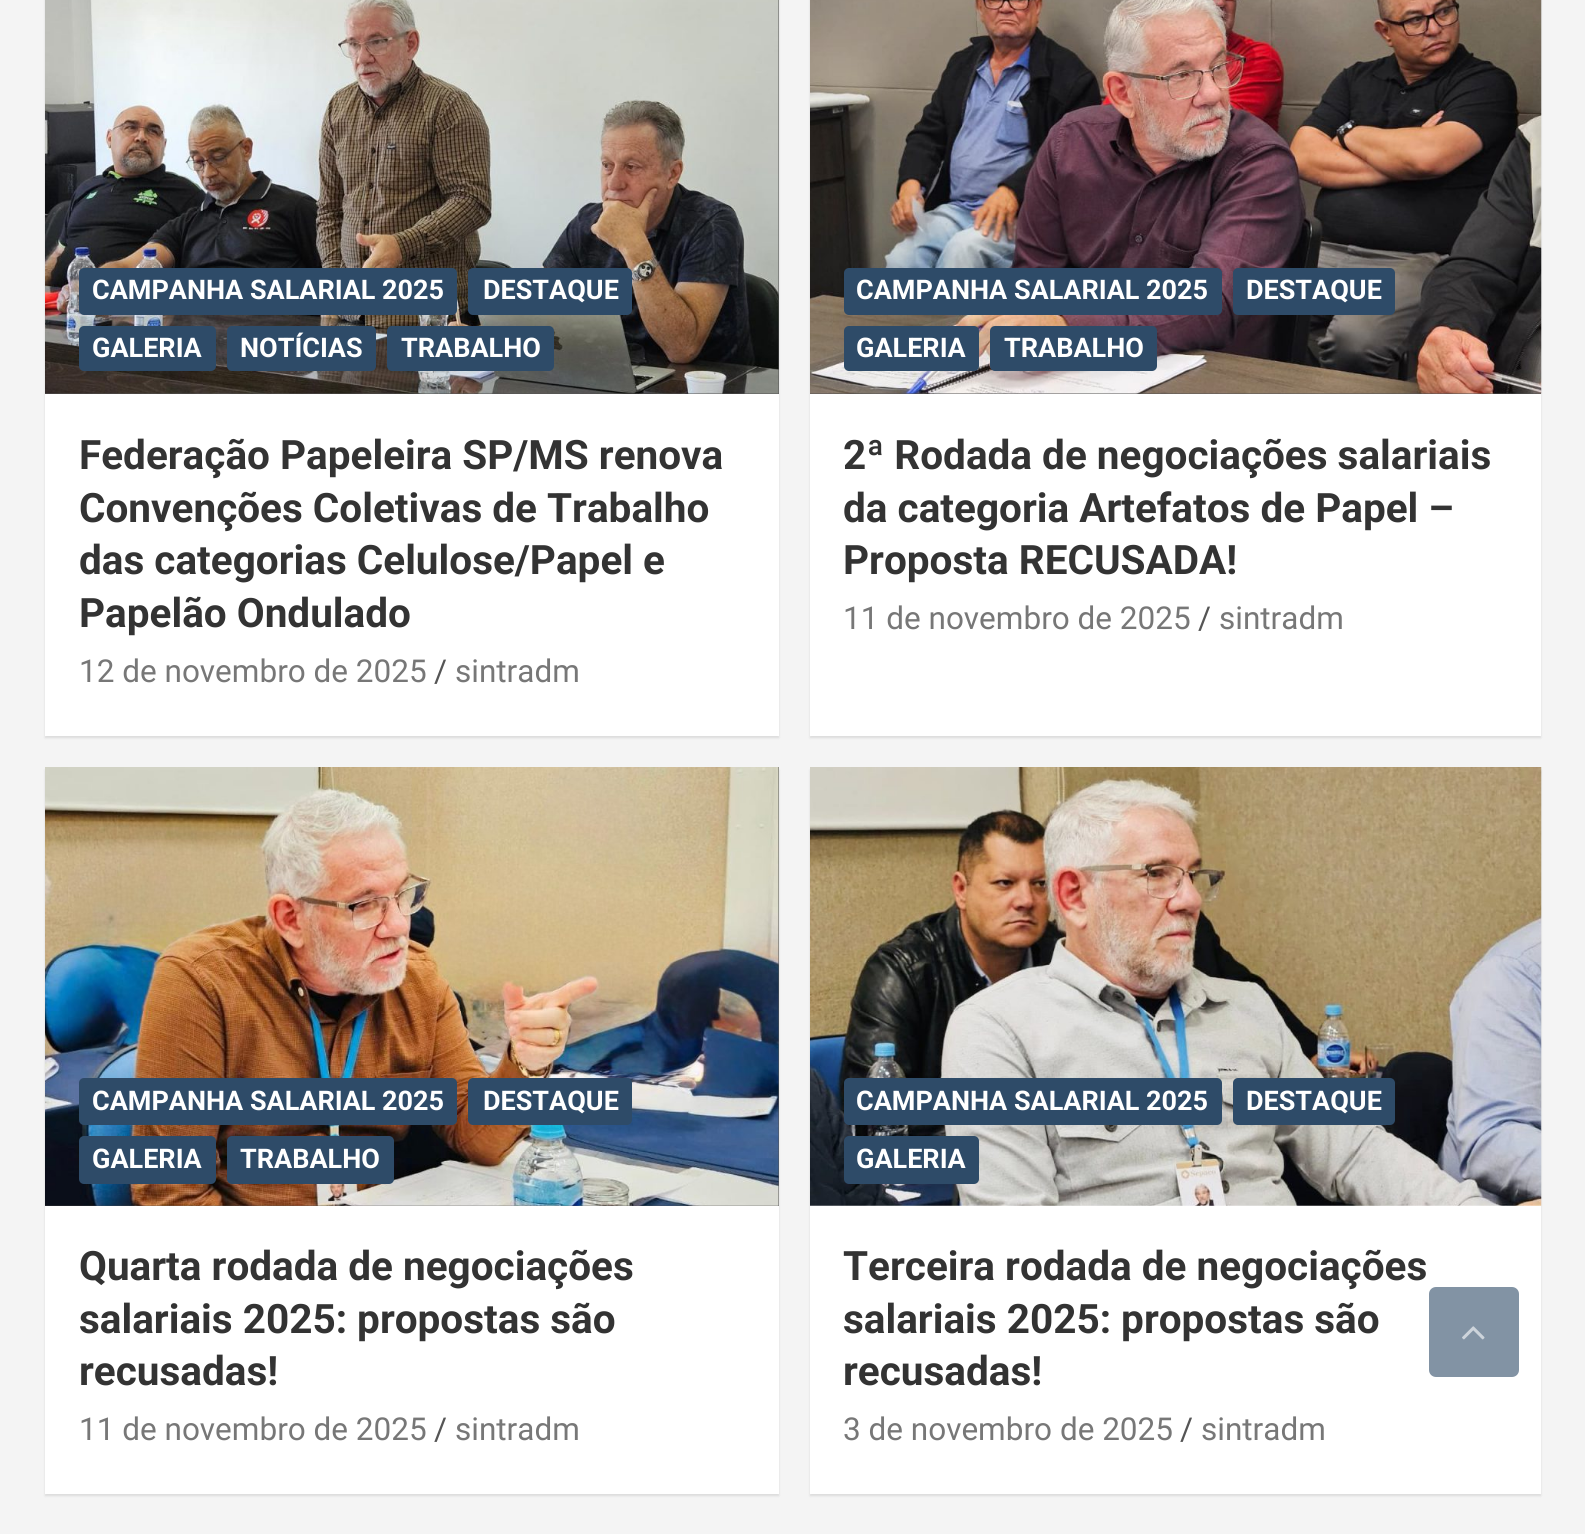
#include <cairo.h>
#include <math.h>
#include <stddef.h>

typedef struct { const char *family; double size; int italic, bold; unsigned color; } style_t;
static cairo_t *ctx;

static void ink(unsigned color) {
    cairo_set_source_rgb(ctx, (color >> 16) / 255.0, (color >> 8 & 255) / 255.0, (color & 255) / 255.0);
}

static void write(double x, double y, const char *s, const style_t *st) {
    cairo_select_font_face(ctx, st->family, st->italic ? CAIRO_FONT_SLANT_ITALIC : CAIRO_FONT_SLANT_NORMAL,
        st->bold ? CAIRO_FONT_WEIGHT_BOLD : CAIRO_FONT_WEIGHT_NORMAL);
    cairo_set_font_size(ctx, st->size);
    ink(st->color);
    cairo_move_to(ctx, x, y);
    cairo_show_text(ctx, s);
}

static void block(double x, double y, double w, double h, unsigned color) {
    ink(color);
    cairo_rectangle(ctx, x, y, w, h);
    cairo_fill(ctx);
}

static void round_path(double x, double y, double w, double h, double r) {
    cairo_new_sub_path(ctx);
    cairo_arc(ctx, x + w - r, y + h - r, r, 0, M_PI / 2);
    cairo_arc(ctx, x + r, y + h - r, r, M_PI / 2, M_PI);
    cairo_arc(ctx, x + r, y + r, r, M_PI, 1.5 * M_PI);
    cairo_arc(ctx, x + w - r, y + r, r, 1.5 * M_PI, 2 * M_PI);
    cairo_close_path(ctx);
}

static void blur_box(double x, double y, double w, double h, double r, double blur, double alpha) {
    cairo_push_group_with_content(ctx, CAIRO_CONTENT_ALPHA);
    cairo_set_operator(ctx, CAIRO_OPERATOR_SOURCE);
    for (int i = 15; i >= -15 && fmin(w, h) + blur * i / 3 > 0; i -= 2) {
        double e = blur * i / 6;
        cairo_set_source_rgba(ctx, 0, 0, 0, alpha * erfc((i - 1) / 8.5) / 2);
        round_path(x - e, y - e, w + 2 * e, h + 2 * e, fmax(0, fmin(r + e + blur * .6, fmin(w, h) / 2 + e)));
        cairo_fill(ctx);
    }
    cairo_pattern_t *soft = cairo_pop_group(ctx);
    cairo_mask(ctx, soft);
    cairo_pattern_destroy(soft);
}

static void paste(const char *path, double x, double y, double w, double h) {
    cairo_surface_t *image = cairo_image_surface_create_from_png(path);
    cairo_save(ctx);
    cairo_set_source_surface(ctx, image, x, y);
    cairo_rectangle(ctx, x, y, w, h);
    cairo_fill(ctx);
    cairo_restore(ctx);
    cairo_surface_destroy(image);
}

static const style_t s1 = {"Roboto", 27, 0, 1, 0xffffff};
static const style_t s2 = {"Roboto", 40.5, 0, 1, 0x333333};
static const style_t s3 = {"Roboto", 31.5, 0, 0, 0x777777};
static const style_t s4 = {"Roboto", 31.5, 0, 0, 0x555555};

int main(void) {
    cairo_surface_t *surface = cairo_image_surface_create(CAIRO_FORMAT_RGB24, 1585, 1534);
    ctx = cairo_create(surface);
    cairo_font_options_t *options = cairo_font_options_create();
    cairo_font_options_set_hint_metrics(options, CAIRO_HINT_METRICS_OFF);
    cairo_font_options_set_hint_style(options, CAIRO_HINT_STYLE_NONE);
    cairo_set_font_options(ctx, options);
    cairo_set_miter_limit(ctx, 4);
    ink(0xf4f4f4);
    cairo_paint(ctx);
    ink(0x000000);
    blur_box(45, -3, 734, 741, 0, 1, 0.1);
    block(45, 394, 734, 342, 0xffffff);
    block(45, 0, 734, 394, 0x555555);
    paste("pic1.png", 45, 0, 734, 394);
    ink(0x2e4b68);
    round_path(79, 268, 378, 47, 5);
    cairo_fill(ctx);
    write(92, 299, "CAMPANHA SALARIAL 2025", &s1);
    ink(0x2e4b68);
    round_path(468, 268, 164, 47, 5);
    cairo_fill(ctx);
    write(483, 299, "DESTAQUE", &s1);
    ink(0x2e4b68);
    round_path(79, 326, 137, 45, 5);
    cairo_fill(ctx);
    write(92, 357, "GALERIA", &s1);
    ink(0x2e4b68);
    round_path(227, 326, 149, 45, 5);
    cairo_fill(ctx);
    write(240, 357, "NOTÍCIAS", &s1);
    ink(0x2e4b68);
    round_path(387, 326, 167, 45, 5);
    cairo_fill(ctx);
    write(401, 357, "TRABALHO", &s1);
    write(79, 469, "Federação Papeleira SP/MS renova", &s2);
    write(79, 522, "Convenções Coletivas de Trabalho", &s2);
    write(79, 574, "das categorias Celulose/Papel e", &s2);
    write(79, 627, "Papelão Ondulado", &s2);
    write(79, 682, "12 de novembro de 2025", &s3);
    write(434, 682, "/", &s4);
    write(455, 682, "sintradm", &s3);
    ink(0x000000);
    blur_box(810, -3, 731, 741, 0, 1, 0.1);
    block(810, 394, 731, 342, 0xffffff);
    block(810, 393, 731, 1, 0x555555);
    paste("pic2.png", 810, 0, 732, 394);
    ink(0x2e4b68);
    round_path(844, 268, 378, 47, 5);
    cairo_fill(ctx);
    write(856, 299, "CAMPANHA SALARIAL 2025", &s1);
    ink(0x2e4b68);
    round_path(1233, 268, 162, 47, 5);
    cairo_fill(ctx);
    write(1246, 299, "DESTAQUE", &s1);
    ink(0x2e4b68);
    round_path(844, 326, 135, 45, 5);
    cairo_fill(ctx);
    write(856, 357, "GALERIA", &s1);
    ink(0x2e4b68);
    round_path(990, 326, 167, 45, 5);
    cairo_fill(ctx);
    write(1004, 357, "TRABALHO", &s1);
    write(843, 469, "2ª Rodada de negociações salariais", &s2);
    write(843, 522, "da categoria Artefatos de Papel –", &s2);
    write(843, 574, "Proposta RECUSADA!", &s2);
    write(843, 629, "11 de novembro de 2025", &s3);
    write(1198, 629, "/", &s4);
    write(1219, 629, "sintradm", &s3);
    ink(0x000000);
    blur_box(45, 770, 734, 726, 0, 1, 0.1);
    block(45, 1206, 734, 288, 0xffffff);
    block(45, 767, 734, 439, 0x555555);
    paste("pic3.png", 45, 767, 734, 439);
    ink(0x2e4b68);
    round_path(79, 1078, 378, 47, 5);
    cairo_fill(ctx);
    write(92, 1110, "CAMPANHA SALARIAL 2025", &s1);
    ink(0x2e4b68);
    round_path(468, 1078, 164, 47, 5);
    cairo_fill(ctx);
    write(483, 1110, "DESTAQUE", &s1);
    ink(0x2e4b68);
    round_path(79, 1136, 137, 48, 5);
    cairo_fill(ctx);
    write(92, 1168, "GALERIA", &s1);
    ink(0x2e4b68);
    round_path(227, 1136, 167, 48, 5);
    cairo_fill(ctx);
    write(240, 1168, "TRABALHO", &s1);
    write(79, 1280, "Quarta rodada de negociações", &s2);
    write(79, 1333, "salariais 2025: propostas são", &s2);
    write(79, 1385, "recusadas!", &s2);
    write(79, 1440, "11 de novembro de 2025", &s3);
    write(434, 1440, "/", &s4);
    write(455, 1440, "sintradm", &s3);
    ink(0x000000);
    blur_box(810, 770, 731, 726, 0, 1, 0.1);
    block(810, 1205, 731, 289, 0xffffff);
    paste("pic4.png", 810, 767, 732, 439);
    ink(0x2e4b68);
    round_path(844, 1078, 378, 47, 5);
    cairo_fill(ctx);
    write(856, 1110, "CAMPANHA SALARIAL 2025", &s1);
    ink(0x2e4b68);
    round_path(1233, 1078, 162, 47, 5);
    cairo_fill(ctx);
    write(1246, 1110, "DESTAQUE", &s1);
    ink(0x2e4b68);
    round_path(844, 1136, 135, 48, 5);
    cairo_fill(ctx);
    write(856, 1168, "GALERIA", &s1);
    write(843, 1280, "Terceira rodada de negociações", &s2);
    write(843, 1333, "salariais 2025: propostas são", &s2);
    write(843, 1385, "recusadas!", &s2);
    write(843, 1440, "3 de novembro de 2025", &s3);
    write(1180, 1440, "/", &s4);
    write(1201, 1440, "sintradm", &s3);
    ink(0x8293a4);
    round_path(1429, 1287, 90, 90, 7);
    cairo_fill(ctx);
    paste("pic5.png", 1462, 1326, 23, 14);
    cairo_surface_write_to_png(surface, "screenshot.png");
    cairo_font_options_destroy(options);
    cairo_destroy(ctx);
    cairo_surface_destroy(surface);
    return 0;
}
